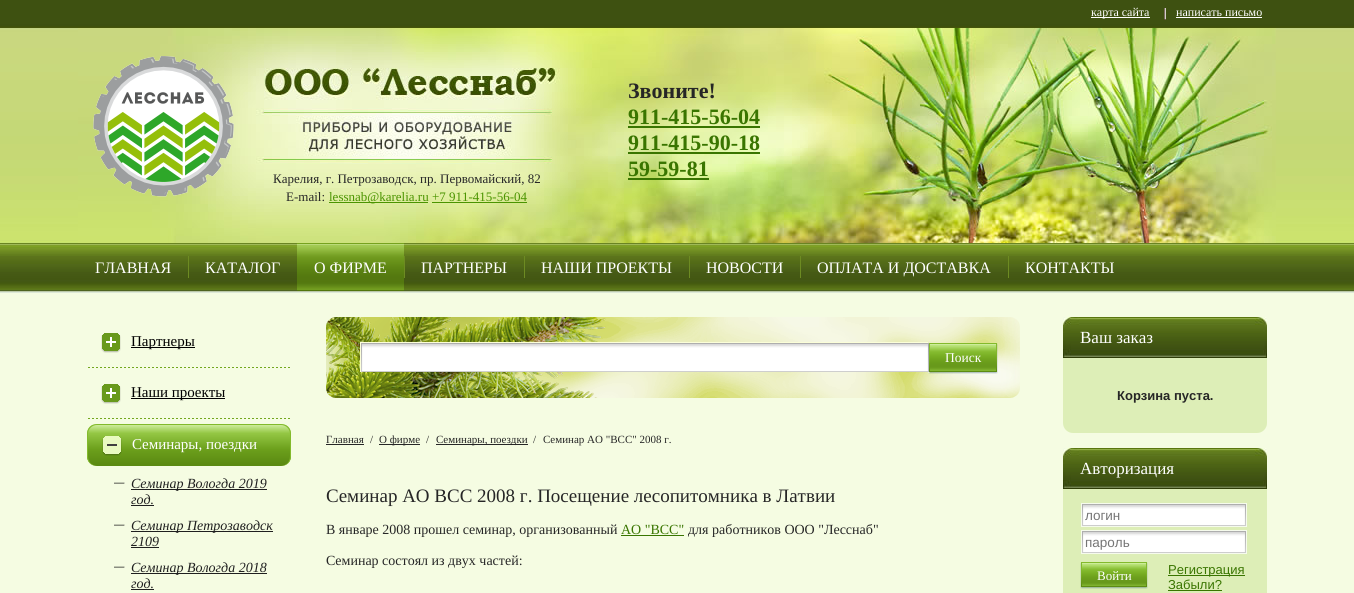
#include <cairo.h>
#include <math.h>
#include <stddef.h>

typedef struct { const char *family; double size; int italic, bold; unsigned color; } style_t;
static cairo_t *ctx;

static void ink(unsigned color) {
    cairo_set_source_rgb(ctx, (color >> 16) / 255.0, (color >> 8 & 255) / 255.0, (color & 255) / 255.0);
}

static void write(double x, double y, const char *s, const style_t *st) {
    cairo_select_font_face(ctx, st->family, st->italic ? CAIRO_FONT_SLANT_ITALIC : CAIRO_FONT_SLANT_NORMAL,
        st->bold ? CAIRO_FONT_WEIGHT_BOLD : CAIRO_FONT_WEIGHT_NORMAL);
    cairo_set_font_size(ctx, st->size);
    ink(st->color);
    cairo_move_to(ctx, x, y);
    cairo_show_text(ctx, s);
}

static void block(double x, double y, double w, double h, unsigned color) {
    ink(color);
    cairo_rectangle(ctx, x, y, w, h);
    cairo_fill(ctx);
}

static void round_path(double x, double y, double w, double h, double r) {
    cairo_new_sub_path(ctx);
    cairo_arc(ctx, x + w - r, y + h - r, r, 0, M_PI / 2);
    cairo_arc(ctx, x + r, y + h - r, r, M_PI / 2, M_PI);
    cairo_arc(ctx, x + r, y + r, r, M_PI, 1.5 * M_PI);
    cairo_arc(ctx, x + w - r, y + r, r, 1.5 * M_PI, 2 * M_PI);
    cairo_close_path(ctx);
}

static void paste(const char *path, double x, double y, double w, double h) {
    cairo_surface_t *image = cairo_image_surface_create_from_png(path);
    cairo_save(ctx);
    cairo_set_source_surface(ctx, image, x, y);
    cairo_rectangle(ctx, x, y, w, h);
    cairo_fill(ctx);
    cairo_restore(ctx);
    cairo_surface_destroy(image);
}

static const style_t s1 = {"Liberation Serif", 12, 0, 0, 0xffffff};
static const style_t s2 = {"Liberation Serif", 22, 0, 1, 0x262626};
static const style_t s3 = {"Liberation Serif", 22, 0, 1, 0x397500};
static const style_t s4 = {"Liberation Serif", 13, 0, 0, 0x262626};
static const style_t s5 = {"Liberation Serif", 13, 0, 0, 0x4a9400};
static const style_t s6 = {"Liberation Serif", 16, 0, 0, 0xffffff};
static const style_t s7 = {"Liberation Serif", 15, 0, 0, 0x000000};
static const style_t s8 = {"Liberation Serif", 15, 0, 0, 0xffffff};
static const style_t s9 = {"Liberation Serif", 14, 1, 0, 0x1f1f1f};
static const style_t s10 = {"Liberation Serif", 13.5, 0, 0, 0xffffff};
static const style_t s11 = {"Liberation Serif", 11, 0, 0, 0x262626};
static const style_t s12 = {"Liberation Serif", 19, 0, 0, 0x262626};
static const style_t s13 = {"Liberation Serif", 14, 0, 0, 0x262626};
static const style_t s14 = {"Liberation Serif", 14, 0, 0, 0x397500};
static const style_t s15 = {"Liberation Serif", 17, 0, 0, 0xffffff};
static const style_t s16 = {"Liberation Sans", 13, 0, 1, 0x262626};
static const style_t s17 = {"Liberation Sans", 13.5, 0, 0, 0x757575};
static const style_t s18 = {"Liberation Serif", 13, 0, 0, 0xffffff};
static const style_t s19 = {"Liberation Sans", 13, 0, 0, 0x397500};

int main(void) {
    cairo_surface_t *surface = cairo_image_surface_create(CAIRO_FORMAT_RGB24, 1354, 593);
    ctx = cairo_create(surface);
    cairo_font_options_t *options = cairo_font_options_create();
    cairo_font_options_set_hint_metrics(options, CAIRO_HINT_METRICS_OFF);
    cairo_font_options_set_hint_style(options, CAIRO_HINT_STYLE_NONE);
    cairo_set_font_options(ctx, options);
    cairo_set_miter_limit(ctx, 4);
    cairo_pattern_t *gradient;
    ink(0xf5fce2);
    cairo_paint(ctx);
    paste("pic1.png", 0, 0, 1354, 293);
    paste("pic2.png", 78, 28, 1198, 215);
    block(1091, 17, 59, 1, 0xffffff);
    write(1091, 16, "карта сайта", &s1);
    paste("pic3.png", 1164, 8, 2, 12);
    write(1176, 16, "написать письмо", &s1);
    block(1176, 17, 86, 1, 0xffffff);
    paste("pic4.png", 93, 56, 141, 141);
    write(628, 98, "Звоните!", &s2);
    write(628, 124, "911-415-56-04", &s3);
    block(628, 126, 132, 2, 0x397500);
    write(628, 150, "911-415-90-18", &s3);
    block(628, 152, 132, 2, 0x397500);
    write(628, 176, "59-59-81", &s3);
    block(628, 178, 81, 2, 0x397500);
    write(273, 183, "Карелия, г. Петрозаводск, пр. Первомайский, 82", &s4);
    write(286, 201, "E-mail:", &s4);
    block(329, 202, 99, 1, 0x4a9400);
    write(329, 201, "lessnab@karelia.ru +7 911-415-56-04", &s5);
    block(432, 202, 95, 1, 0x4a9400);
    write(95, 273, "ГЛАВНАЯ", &s6);
    block(188, 256, 1, 22, 0x6d8b22);
    write(205, 273, "КАТАЛОГ", &s6);
    paste("pic5.png", 297, 243, 107, 48);
    write(314, 273, "О ФИРМЕ", &s6);
    block(404, 256, 1, 22, 0x6d8b22);
    write(421, 273, "ПАРТНЕРЫ", &s6);
    block(524, 256, 1, 22, 0x6d8b22);
    write(541, 273, "НАШИ ПРОЕКТЫ", &s6);
    block(689, 256, 1, 22, 0x6d8b22);
    write(706, 273, "НОВОСТИ", &s6);
    block(800, 256, 1, 22, 0x6d8b22);
    write(817, 273, "ОПЛАТА И ДОСТАВКА", &s6);
    block(1008, 256, 1, 22, 0x6d8b22);
    write(1025, 273, "КОНТАКТЫ", &s6);
    paste("pic6.png", 88, 367, 202, 1);
    paste("pic7.png", 101, 333, 20, 20);
    block(131, 347, 64, 1, 0x000000);
    write(131, 346, "Партнеры", &s7);
    paste("pic6.png", 88, 418, 202, 1);
    paste("pic7.png", 101, 384, 20, 20);
    block(131, 398, 94, 1, 0x000000);
    write(131, 397, "Наши проекты", &s7);
    ink(0xcdec9b);
    round_path(87, 424, 204, 42, 10);
    cairo_fill(ctx);
    cairo_save(ctx);
    round_path(87, 424, 204, 42, 10);
    cairo_clip(ctx);
    gradient = cairo_pattern_create_linear(189, 425, 189, 466);
    cairo_pattern_add_color_stop_rgba(gradient, 0, 0.804, 0.925, 0.608, 1);
    cairo_pattern_add_color_stop_rgba(gradient, 0.2, 0.58, 0.78, 0.267, 1);
    cairo_pattern_add_color_stop_rgba(gradient, 0.59, 0.424, 0.627, 0.11, 1);
    cairo_pattern_add_color_stop_rgba(gradient, 0.95, 0.357, 0.541, 0.071, 1);
    cairo_set_source(ctx, gradient);
    cairo_pattern_destroy(gradient);
    cairo_new_path(ctx);
    cairo_move_to(ctx, 87, 425);
    cairo_line_to(ctx, 291, 425);
    cairo_line_to(ctx, 291, 456);
    cairo_curve_to(ctx, 291, 461.5, 286.5, 466, 281, 466);
    cairo_line_to(ctx, 97, 466);
    cairo_curve_to(ctx, 91.5, 466, 87, 461.5, 87, 456);
    cairo_close_path(ctx);
    cairo_fill(ctx);
    cairo_restore(ctx);
    ink(0x83ba2c);
    cairo_set_fill_rule(ctx, CAIRO_FILL_RULE_EVEN_ODD);
    cairo_new_path(ctx);
    cairo_move_to(ctx, 97, 424);
    cairo_line_to(ctx, 281, 424);
    cairo_curve_to(ctx, 287, 424, 291, 428, 291, 434);
    cairo_line_to(ctx, 291, 456);
    cairo_curve_to(ctx, 291, 462, 287, 466, 281, 466);
    cairo_line_to(ctx, 97, 466);
    cairo_curve_to(ctx, 91, 466, 87, 462, 87, 456);
    cairo_line_to(ctx, 87, 434);
    cairo_curve_to(ctx, 87, 428, 91, 424, 97, 424);
    cairo_close_path(ctx);
    cairo_move_to(ctx, 97, 425);
    cairo_line_to(ctx, 281, 425);
    cairo_curve_to(ctx, 286, 425, 290, 429, 290, 434);
    cairo_line_to(ctx, 290, 456);
    cairo_curve_to(ctx, 290, 462, 286, 466, 281, 466);
    cairo_line_to(ctx, 97, 466);
    cairo_curve_to(ctx, 92, 466, 88, 462, 88, 456);
    cairo_line_to(ctx, 88, 434);
    cairo_curve_to(ctx, 88, 429, 92, 425, 97, 425);
    cairo_close_path(ctx);
    cairo_fill(ctx);
    paste("pic8.png", 102, 436, 20, 20);
    write(132, 449, "Семинары, поездки", &s8);
    paste("pic9.png", 114, 482, 11, 2);
    block(131, 489, 136, 1, 0x1f1f1f);
    write(131, 488, "Семинар Вологда 2019", &s9);
    write(131, 504, "год.", &s9);
    block(131, 505, 23, 1, 0x1f1f1f);
    paste("pic9.png", 114, 524, 11, 2);
    block(131, 531, 142, 1, 0x1f1f1f);
    write(131, 530, "Семинар Петрозаводск", &s9);
    write(131, 546, "2109", &s9);
    block(131, 547, 28, 1, 0x1f1f1f);
    paste("pic9.png", 114, 566, 11, 2);
    block(131, 573, 136, 1, 0x1f1f1f);
    write(131, 572, "Семинар Вологда 2018", &s9);
    write(131, 588, "год.", &s9);
    block(131, 589, 23, 1, 0x1f1f1f);
    paste("pic10.png", 326, 317, 694, 81);
    paste("pic11.png", 359, 341, 569, 31);
    paste("pic12.png", 928, 343, 70, 31);
    write(945, 362, "Поиск", &s10);
    write(326, 443, "Главная", &s11);
    block(326, 444, 38, 1, 0x262626);
    write(370, 443, "/", &s11);
    block(379, 444, 41, 1, 0x262626);
    write(379, 443, "О фирме", &s11);
    write(426, 443, "/", &s11);
    block(436, 444, 92, 1, 0x262626);
    write(436, 443, "Семинары, поездки", &s11);
    write(533, 443, "/", &s11);
    write(543, 443, "Семинар АО \"BCC\" 2008 г.", &s11);
    write(326, 502, "Семинар АО BCC 2008 г. Посещение лесопитомника в Латвии", &s12);
    write(326, 534, "В январе 2008 прошел семинар, организованный", &s13);
    write(621, 534, "АО \"BCC\"", &s14);
    block(621, 535, 63, 1, 0x397500);
    write(688, 534, "для работников ООО \"Лесснаб\"", &s13);
    write(326, 565, "Семинар состоял из двух частей:", &s13);
    paste("pic13.png", 1063, 317, 204, 41);
    write(1080, 343, "Ваш заказ", &s15);
    ink(0xddeeb7);
    cairo_new_path(ctx);
    cairo_move_to(ctx, 1063, 358);
    cairo_line_to(ctx, 1267, 358);
    cairo_line_to(ctx, 1267, 423);
    cairo_curve_to(ctx, 1267, 428.5, 1262.5, 433, 1257, 433);
    cairo_line_to(ctx, 1073, 433);
    cairo_curve_to(ctx, 1067.5, 433, 1063, 428.5, 1063, 423);
    cairo_close_path(ctx);
    cairo_fill(ctx);
    write(1117, 400, "Корзина пуста.", &s16);
    paste("pic13.png", 1063, 448, 204, 41);
    write(1080, 474, "Авторизация", &s15);
    block(1063, 489, 204, 104, 0xddeeb7);
    paste("pic14.png", 1081, 503, 166, 24);
    write(1085, 520, "логин", &s17);
    paste("pic14.png", 1081, 530, 166, 24);
    write(1085, 547, "пароль", &s17);
    paste("pic15.png", 1080, 562, 68, 27);
    write(1097, 580, "Войти", &s18);
    block(1168, 575, 77, 1, 0x397500);
    write(1168, 574, "Регистрация", &s19);
    write(1168, 589, "Забыли?", &s19);
    block(1168, 590, 54, 1, 0x397500);
    cairo_surface_write_to_png(surface, "screenshot.png");
    cairo_font_options_destroy(options);
    cairo_destroy(ctx);
    cairo_surface_destroy(surface);
    return 0;
}
